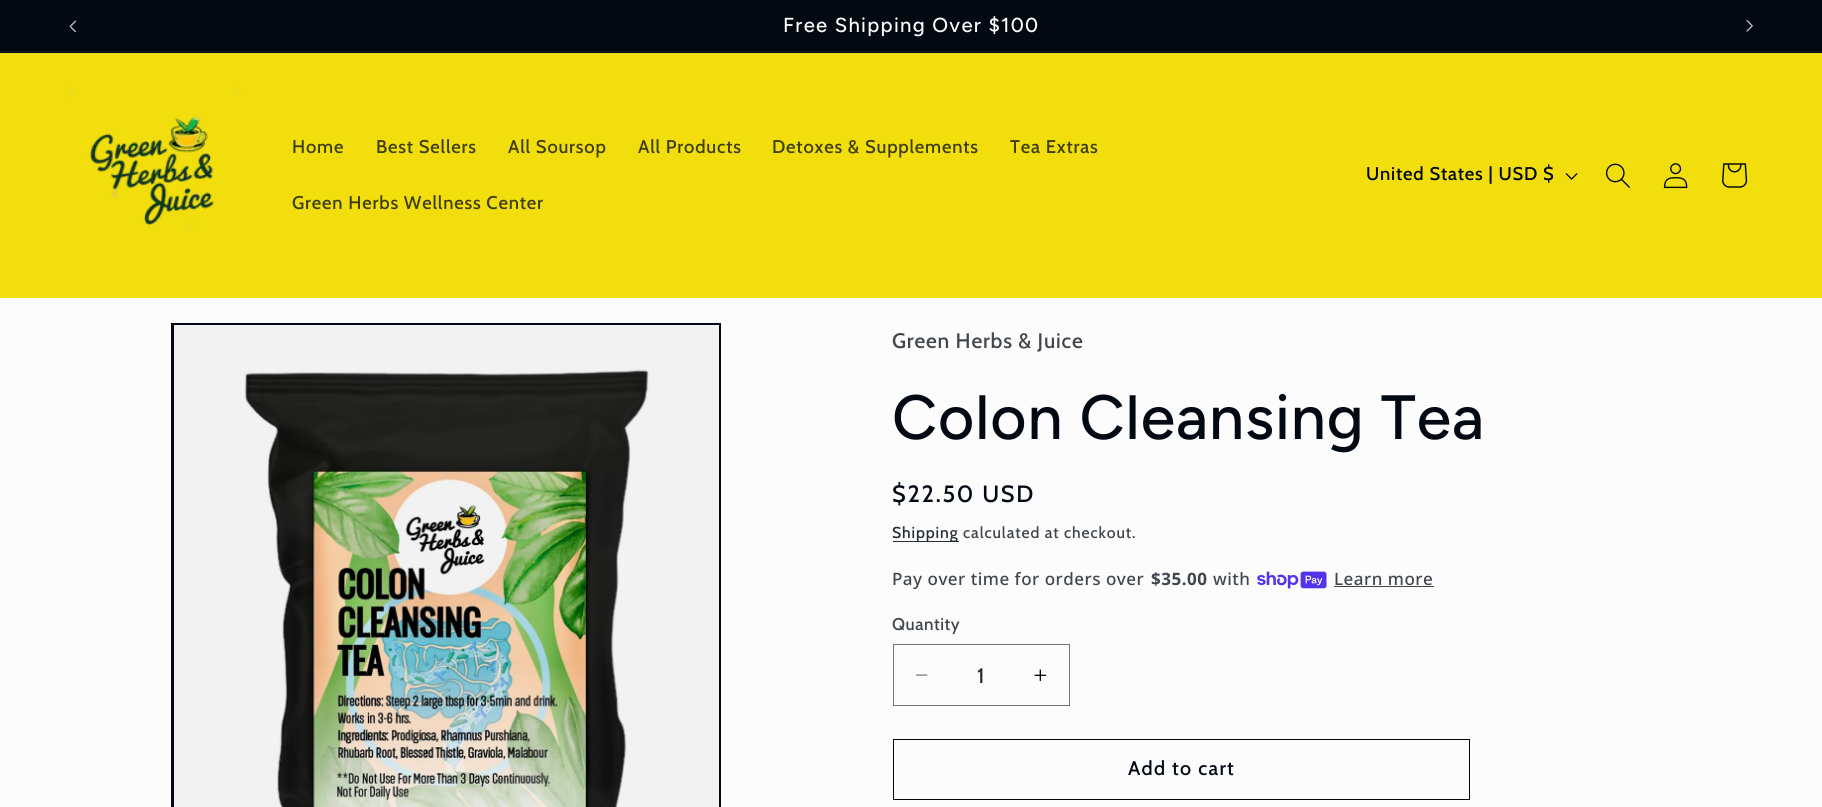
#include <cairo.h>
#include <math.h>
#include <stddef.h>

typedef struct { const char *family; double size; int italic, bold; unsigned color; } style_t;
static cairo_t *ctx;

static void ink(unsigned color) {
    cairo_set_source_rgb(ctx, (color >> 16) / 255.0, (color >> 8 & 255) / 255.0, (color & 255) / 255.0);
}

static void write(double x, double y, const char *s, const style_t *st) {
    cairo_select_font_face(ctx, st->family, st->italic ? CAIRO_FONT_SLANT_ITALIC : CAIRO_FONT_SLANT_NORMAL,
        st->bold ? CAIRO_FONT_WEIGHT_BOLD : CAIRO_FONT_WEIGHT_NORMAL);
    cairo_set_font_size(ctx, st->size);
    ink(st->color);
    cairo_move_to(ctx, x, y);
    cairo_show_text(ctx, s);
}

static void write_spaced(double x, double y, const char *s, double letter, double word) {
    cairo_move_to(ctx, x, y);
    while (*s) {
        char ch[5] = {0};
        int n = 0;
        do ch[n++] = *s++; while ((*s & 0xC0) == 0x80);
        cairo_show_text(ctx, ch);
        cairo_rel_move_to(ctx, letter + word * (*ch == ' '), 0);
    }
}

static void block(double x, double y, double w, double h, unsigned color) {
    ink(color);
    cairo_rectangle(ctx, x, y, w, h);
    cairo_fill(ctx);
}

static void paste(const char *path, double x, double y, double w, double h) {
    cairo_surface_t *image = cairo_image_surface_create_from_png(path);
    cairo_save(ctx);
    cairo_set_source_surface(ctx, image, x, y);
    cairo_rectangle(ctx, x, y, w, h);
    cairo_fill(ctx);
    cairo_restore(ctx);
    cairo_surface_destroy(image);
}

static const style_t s1 = {"Cabin Medium", 21, 0, 0, 0x272d34};

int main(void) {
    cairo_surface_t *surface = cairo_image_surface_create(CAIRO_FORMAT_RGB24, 1822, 807);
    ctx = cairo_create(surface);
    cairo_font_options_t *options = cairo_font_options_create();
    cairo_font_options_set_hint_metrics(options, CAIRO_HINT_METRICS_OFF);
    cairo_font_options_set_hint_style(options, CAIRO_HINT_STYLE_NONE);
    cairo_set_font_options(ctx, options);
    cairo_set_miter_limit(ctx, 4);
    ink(0xfcfcfc);
    cairo_paint(ctx);
    block(0, 0, 1822, 53, 0x020912);
    block(0, 51, 1822, 1, 0x161c25);
    paste("pic1.png", 69, 20, 7, 13);
    cairo_select_font_face(ctx, "Figtree Medium", CAIRO_FONT_SLANT_NORMAL, CAIRO_FONT_WEIGHT_NORMAL);
    cairo_set_font_size(ctx, 20.25);
    ink(0xfcfcfc);
    write_spaced(783, 32, "Free Shipping Over $100", 1.3, 0);
    paste("pic2.png", 1746, 20, 7, 12);
    block(0, 53, 1822, 245, 0xf2de0d);
    paste("pic3.png", 66, 87, 175, 145);
    cairo_select_font_face(ctx, "Cabin Medium", CAIRO_FONT_SLANT_NORMAL, CAIRO_FONT_WEIGHT_NORMAL);
    cairo_set_font_size(ctx, 18.4);
    ink(0x3e3e11);
    write_spaced(292, 153, "Home", 0.8, 0);
    write_spaced(376, 153, "Best Sellers", 0.8, 0);
    write_spaced(508, 153, "All Soursop", 0.8, 0);
    write_spaced(638, 153, "All Products", 0.8, 0);
    write_spaced(772, 153, "Detoxes & Supplements", 0.8, 0);
    write_spaced(1010, 153, "Tea Extras", 0.8, 0);
    write_spaced(292, 209, "Green Herbs Wellness Center", 0.8, 0);
    ink(0x020912);
    write_spaced(1366, 180, "United States | USD $", 0.8, 0);
    paste("pic4.png", 1565, 173, 13, 7);
    paste("pic5.png", 1605, 163, 25, 25);
    paste("pic6.png", 1663, 163, 25, 26);
    paste("pic7.png", 1722, 163, 26, 25);
    cairo_rectangle(ctx, 172.5, 324.5, 547, 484);
    cairo_set_line_width(ctx, 3);
    cairo_stroke(ctx);
    paste("pic8.png", 174, 325, 545, 482);
    cairo_set_font_size(ctx, 21);
    ink(0x41464d);
    write_spaced(892, 348, "Green Herbs & Juice", 0.8, 0);
    cairo_select_font_face(ctx, "Figtree Medium", CAIRO_FONT_SLANT_NORMAL, CAIRO_FONT_WEIGHT_NORMAL);
    cairo_set_font_size(ctx, 62.5);
    ink(0x020912);
    write_spaced(892, 439, "Colon Cleansing Tea", 0.9, 0);
    cairo_select_font_face(ctx, "Cabin Medium", CAIRO_FONT_SLANT_NORMAL, CAIRO_FONT_WEIGHT_NORMAL);
    cairo_set_font_size(ctx, 23.5);
    write_spaced(892, 502, "$22.50 USD", 1.75, 0);
    block(893, 541, 66, 1, 0x282d35);
    cairo_set_font_size(ctx, 15.75);
    ink(0x272d34);
    write_spaced(892, 538, "Shipping", 0.9, 0);
    ink(0x41464d);
    write_spaced(963, 538, "calculated at checkout.", 0.9, 0);
    cairo_select_font_face(ctx, "Noto Sans Medium", CAIRO_FONT_SLANT_NORMAL, CAIRO_FONT_WEIGHT_NORMAL);
    cairo_set_font_size(ctx, 17);
    write_spaced(892, 585, "Pay over time for orders over", 0.5, 0);
    cairo_select_font_face(ctx, "Noto Sans", CAIRO_FONT_SLANT_NORMAL, CAIRO_FONT_WEIGHT_BOLD);
    write_spaced(1151, 585, "$35.00", 0.5, 0);
    cairo_select_font_face(ctx, "Noto Sans Medium", CAIRO_FONT_SLANT_NORMAL, CAIRO_FONT_WEIGHT_NORMAL);
    write_spaced(1213, 585, "with", 0.5, 0);
    paste("pic9.png", 1257, 571, 70, 18);
    write_spaced(1334, 585, "Learn more", 0.5, 0);
    block(1334, 586, 100, 1, 0x41464d);
    cairo_select_font_face(ctx, "Cabin Medium", CAIRO_FONT_SLANT_NORMAL, CAIRO_FONT_WEIGHT_NORMAL);
    write_spaced(892, 630, "Quantity", 0.5, 0);
    paste("pic10.png", 915, 674, 13, 2);
    paste("pic11.png", 1034, 669, 13, 12);
    cairo_rectangle(ctx, 893.5, 644.5, 176, 61);
    ink(0x72767b);
    cairo_set_line_width(ctx, 1);
    cairo_stroke(ctx);
    write(977, 683, "1", &s1);
    cairo_rectangle(ctx, 893.5, 739.5, 576, 60);
    ink(0x020912);
    cairo_stroke(ctx);
    cairo_set_font_size(ctx, 19.75);
    write_spaced(1128, 775, "Add to cart", 1.3, 0);
    cairo_surface_write_to_png(surface, "screenshot.png");
    cairo_font_options_destroy(options);
    cairo_destroy(ctx);
    cairo_surface_destroy(surface);
    return 0;
}
